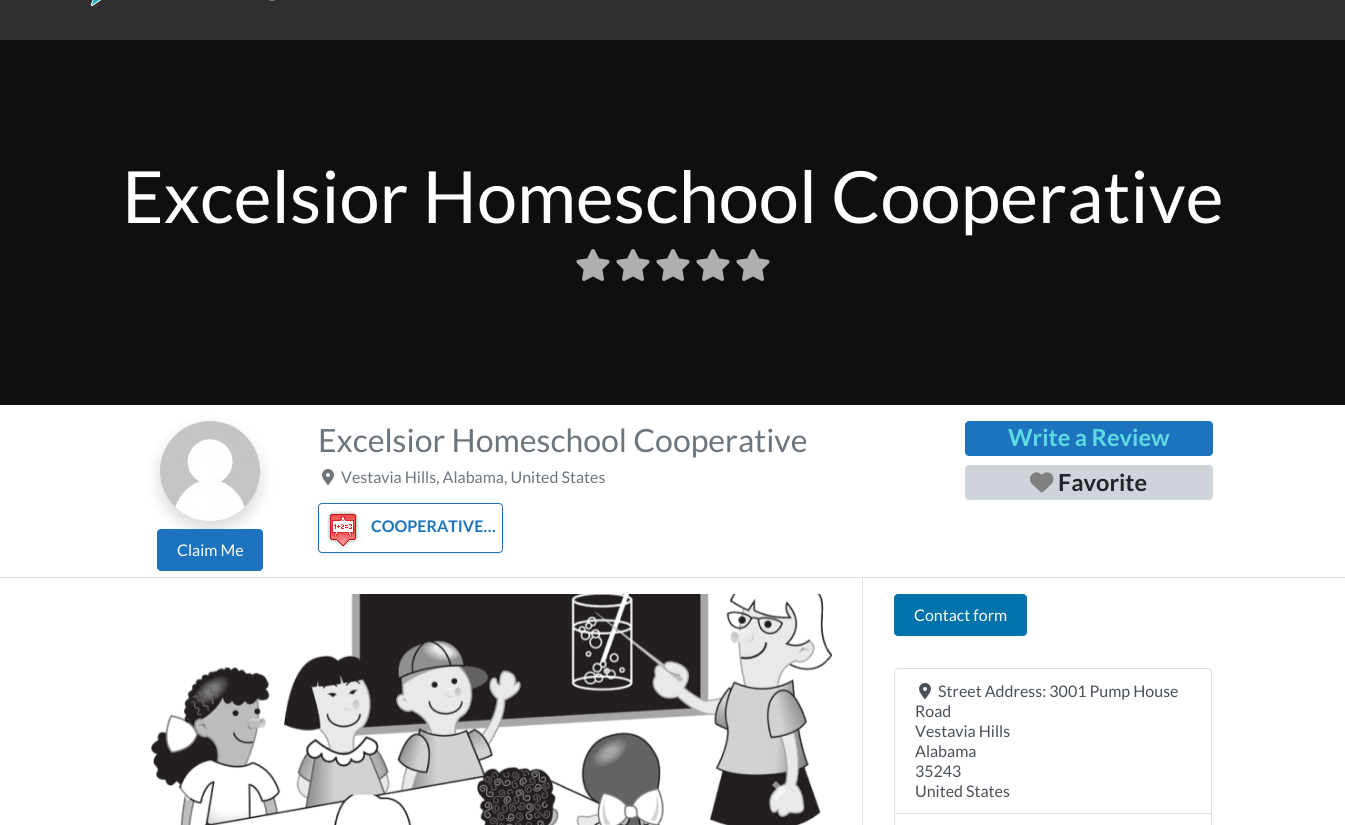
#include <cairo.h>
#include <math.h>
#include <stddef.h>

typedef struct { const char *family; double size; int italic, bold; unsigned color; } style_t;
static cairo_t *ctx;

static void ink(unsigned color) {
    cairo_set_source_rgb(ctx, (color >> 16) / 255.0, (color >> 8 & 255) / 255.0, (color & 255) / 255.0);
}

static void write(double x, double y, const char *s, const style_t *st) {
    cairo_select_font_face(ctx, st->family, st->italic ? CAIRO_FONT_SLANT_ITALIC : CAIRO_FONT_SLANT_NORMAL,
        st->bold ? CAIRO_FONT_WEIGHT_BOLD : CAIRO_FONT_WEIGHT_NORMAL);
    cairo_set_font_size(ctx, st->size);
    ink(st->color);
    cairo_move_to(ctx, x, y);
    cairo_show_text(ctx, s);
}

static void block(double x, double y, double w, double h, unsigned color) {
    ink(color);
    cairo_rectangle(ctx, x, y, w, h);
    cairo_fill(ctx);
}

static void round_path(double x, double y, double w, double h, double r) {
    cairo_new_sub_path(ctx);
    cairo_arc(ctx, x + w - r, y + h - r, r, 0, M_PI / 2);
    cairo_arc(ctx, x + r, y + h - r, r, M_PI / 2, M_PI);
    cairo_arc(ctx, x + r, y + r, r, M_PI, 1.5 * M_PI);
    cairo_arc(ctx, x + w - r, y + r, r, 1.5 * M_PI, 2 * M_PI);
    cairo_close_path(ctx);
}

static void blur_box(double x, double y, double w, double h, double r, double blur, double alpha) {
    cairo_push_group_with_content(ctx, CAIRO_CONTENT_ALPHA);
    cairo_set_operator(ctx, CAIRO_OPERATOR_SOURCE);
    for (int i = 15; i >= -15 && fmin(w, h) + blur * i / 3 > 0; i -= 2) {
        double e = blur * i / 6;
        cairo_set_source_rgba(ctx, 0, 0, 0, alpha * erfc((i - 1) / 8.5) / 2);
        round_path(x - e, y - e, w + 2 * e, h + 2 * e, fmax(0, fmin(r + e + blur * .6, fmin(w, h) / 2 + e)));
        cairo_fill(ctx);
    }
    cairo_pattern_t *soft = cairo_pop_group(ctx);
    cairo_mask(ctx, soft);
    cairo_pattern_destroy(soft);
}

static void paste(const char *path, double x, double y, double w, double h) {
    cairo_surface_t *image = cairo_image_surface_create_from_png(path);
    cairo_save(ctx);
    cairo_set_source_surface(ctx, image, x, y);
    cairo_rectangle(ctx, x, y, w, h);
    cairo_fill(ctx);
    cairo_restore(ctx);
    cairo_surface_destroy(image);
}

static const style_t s1 = {"Lato", 72, 0, 0, 0xffffff};
static const style_t s2 = {"Lato", 32, 0, 0, 0x6c757d};
static const style_t s3 = {"Lato", 16, 0, 0, 0x6c757d};
static const style_t s4 = {"Lato", 16, 0, 1, 0x1e73be};
static const style_t s5 = {"Lato", 23.5, 0, 1, 0x5cdbe0};
static const style_t s6 = {"Lato", 23.5, 0, 1, 0x212529};
static const style_t s7 = {"Lato", 16, 0, 0, 0xffffff};
static const style_t s8 = {"Lato", 16, 0, 0, 0x495057};

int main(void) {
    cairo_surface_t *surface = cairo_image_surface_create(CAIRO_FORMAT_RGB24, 1345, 825);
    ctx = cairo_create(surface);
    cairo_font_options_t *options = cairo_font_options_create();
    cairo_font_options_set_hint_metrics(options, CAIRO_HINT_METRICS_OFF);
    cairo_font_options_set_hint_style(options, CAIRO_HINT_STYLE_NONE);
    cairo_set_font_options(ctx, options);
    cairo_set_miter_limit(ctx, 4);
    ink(0xffffff);
    cairo_paint(ctx);
    block(0, 0, 1345, 40, 0x2f2f2f);
    paste("pic1.png", 90, 0, 185, 6);
    block(0, 40, 1345, 365, 0x0d0f10);
    write(122, 223, "Excelsior Homeschool Cooperative", &s1);
    paste("pic2.png", 576, 249, 34, 32);
    paste("pic2.png", 616, 249, 34, 32);
    paste("pic2.png", 656, 249, 34, 32);
    paste("pic2.png", 696, 249, 34, 32);
    paste("pic2.png", 736, 249, 34, 32);
    block(0, 577, 1345, 1, 0xdee2e6);
    write(318, 452, "Excelsior Homeschool Cooperative", &s2);
    paste("pic3.png", 322, 469, 12, 16);
    write(341, 483, "Vestavia Hills, Alabama, United States", &s3);
    cairo_save(ctx);
    cairo_set_fill_rule(ctx, CAIRO_FILL_RULE_EVEN_ODD);
    cairo_new_path(ctx);
    cairo_move_to(ctx, 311, 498);
    cairo_line_to(ctx, 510, 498);
    cairo_line_to(ctx, 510, 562);
    cairo_line_to(ctx, 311, 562);
    cairo_close_path(ctx);
    cairo_move_to(ctx, 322, 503);
    cairo_line_to(ctx, 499, 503);
    cairo_curve_to(ctx, 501, 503, 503, 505, 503, 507);
    cairo_line_to(ctx, 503, 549);
    cairo_curve_to(ctx, 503, 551, 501, 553, 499, 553);
    cairo_line_to(ctx, 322, 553);
    cairo_curve_to(ctx, 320, 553, 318, 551, 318, 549);
    cairo_line_to(ctx, 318, 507);
    cairo_curve_to(ctx, 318, 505, 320, 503, 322, 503);
    cairo_close_path(ctx);
    cairo_clip(ctx);
    ink(0x000000);
    blur_box(318, 505, 185, 50, 4, 2, 0.07);
    cairo_restore(ctx);
    round_path(318.5, 503.5, 184, 49, 3.5);
    ink(0x1e73be);
    cairo_set_line_width(ctx, 1);
    cairo_stroke(ctx);
    paste("pic4.png", 327, 511, 32, 37);
    write(371, 532, "COOPERATIVE…", &s4);
    round_path(965, 421, 248, 35, 4);
    cairo_fill(ctx);
    write(1008, 446, "Write a Review", &s5);
    ink(0xced4da);
    round_path(965, 465, 248, 35, 4);
    cairo_fill(ctx);
    paste("pic5.png", 1030, 472, 24, 21);
    write(1058, 491, "Favorite", &s6);
    ink(0x000000);
    blur_box(160, 429, 100, 100, 50, 8, 0.15);
    paste("pic6.png", 160, 421, 100, 100);
    ink(0x1e73be);
    round_path(157.5, 529.5, 105, 41, 3.5);
    cairo_fill_preserve(ctx);
    cairo_stroke(ctx);
    write(177, 556, "Claim Me", &s7);
    block(862, 578, 1, 247, 0xdee2e6);
    paste("pic7.png", 151, 594, 681, 231);
    cairo_set_source_rgba(ctx, 1, 1, 1, 0.5);
    cairo_new_path(ctx);
    cairo_move_to(ctx, 188, 781);
    cairo_line_to(ctx, 178, 791);
    cairo_line_to(ctx, 188, 801);
    cairo_line_to(ctx, 192, 797);
    cairo_line_to(ctx, 185.5, 791);
    cairo_line_to(ctx, 192, 785);
    cairo_close_path(ctx);
    cairo_fill(ctx);
    cairo_new_path(ctx);
    cairo_move_to(ctx, 776, 781);
    cairo_line_to(ctx, 772, 785);
    cairo_line_to(ctx, 778.5, 791);
    cairo_line_to(ctx, 772, 797);
    cairo_line_to(ctx, 776, 801);
    cairo_line_to(ctx, 786, 791);
    cairo_close_path(ctx);
    cairo_fill(ctx);
    ink(0x0073aa);
    round_path(894.5, 594.5, 132, 41, 3.5);
    cairo_fill_preserve(ctx);
    cairo_stroke(ctx);
    write(914, 621, "Contact form", &s7);
    cairo_new_path(ctx);
    cairo_move_to(ctx, 898, 668.5);
    cairo_line_to(ctx, 1208, 668.5);
    cairo_curve_to(ctx, 1210, 668.5, 1211.5, 670, 1211.5, 672);
    cairo_line_to(ctx, 1211.5, 813.5);
    cairo_line_to(ctx, 894.5, 813.5);
    cairo_line_to(ctx, 894.5, 672);
    cairo_curve_to(ctx, 894.5, 670, 896, 668.5, 898, 668.5);
    cairo_close_path(ctx);
    ink(0xdfdfdf);
    cairo_stroke(ctx);
    paste("pic8.png", 919, 683, 12, 16);
    write(938, 697, "Street Address: 3001 Pump House", &s8);
    write(915, 717, "Road", &s8);
    write(915, 737, "Vestavia Hills", &s8);
    write(915, 757, "Alabama", &s8);
    write(915, 777, "35243", &s8);
    write(915, 797, "United States", &s8);
    ink(0xdfdfdf);
    cairo_new_path(ctx);
    cairo_move_to(ctx, 1212, 814);
    cairo_line_to(ctx, 1212, 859);
    cairo_line_to(ctx, 1211, 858);
    cairo_line_to(ctx, 1211, 814);
    cairo_close_path(ctx);
    cairo_fill(ctx);
    cairo_new_path(ctx);
    cairo_move_to(ctx, 894, 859);
    cairo_line_to(ctx, 894, 814);
    cairo_line_to(ctx, 895, 814);
    cairo_line_to(ctx, 895, 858);
    cairo_close_path(ctx);
    cairo_fill(ctx);
    cairo_surface_write_to_png(surface, "screenshot.png");
    cairo_font_options_destroy(options);
    cairo_destroy(ctx);
    cairo_surface_destroy(surface);
    return 0;
}
